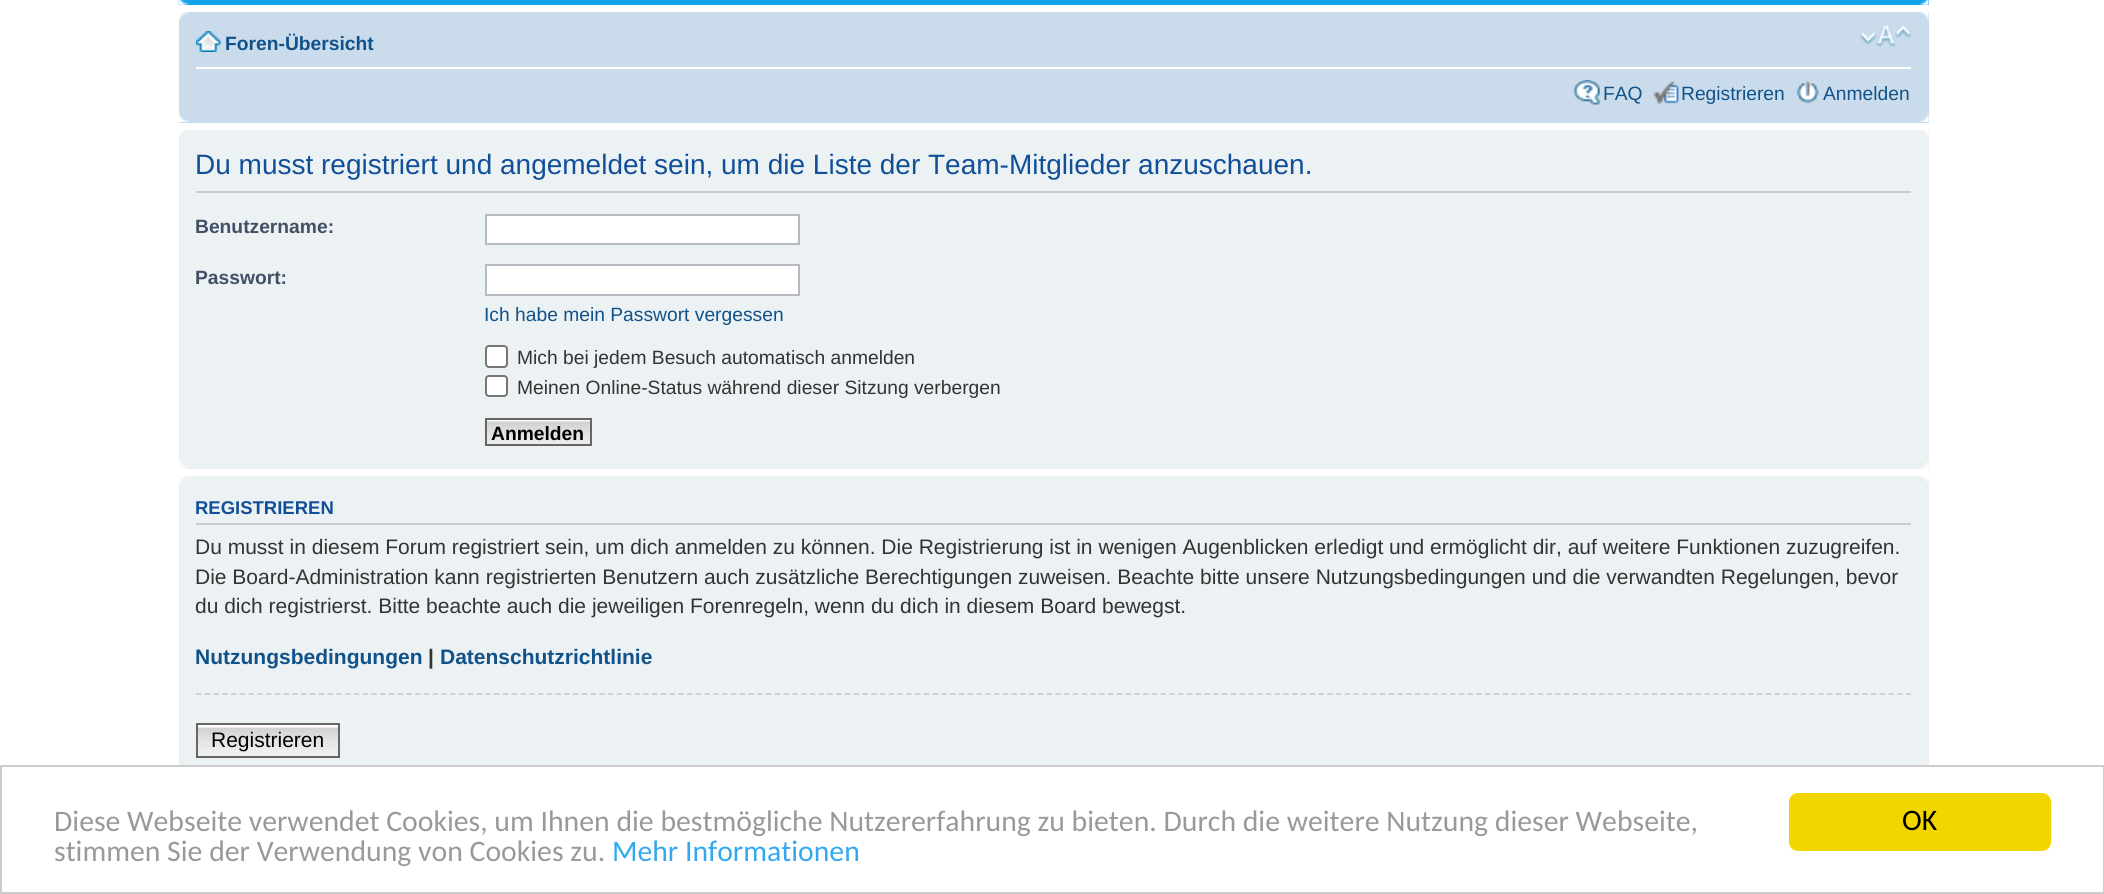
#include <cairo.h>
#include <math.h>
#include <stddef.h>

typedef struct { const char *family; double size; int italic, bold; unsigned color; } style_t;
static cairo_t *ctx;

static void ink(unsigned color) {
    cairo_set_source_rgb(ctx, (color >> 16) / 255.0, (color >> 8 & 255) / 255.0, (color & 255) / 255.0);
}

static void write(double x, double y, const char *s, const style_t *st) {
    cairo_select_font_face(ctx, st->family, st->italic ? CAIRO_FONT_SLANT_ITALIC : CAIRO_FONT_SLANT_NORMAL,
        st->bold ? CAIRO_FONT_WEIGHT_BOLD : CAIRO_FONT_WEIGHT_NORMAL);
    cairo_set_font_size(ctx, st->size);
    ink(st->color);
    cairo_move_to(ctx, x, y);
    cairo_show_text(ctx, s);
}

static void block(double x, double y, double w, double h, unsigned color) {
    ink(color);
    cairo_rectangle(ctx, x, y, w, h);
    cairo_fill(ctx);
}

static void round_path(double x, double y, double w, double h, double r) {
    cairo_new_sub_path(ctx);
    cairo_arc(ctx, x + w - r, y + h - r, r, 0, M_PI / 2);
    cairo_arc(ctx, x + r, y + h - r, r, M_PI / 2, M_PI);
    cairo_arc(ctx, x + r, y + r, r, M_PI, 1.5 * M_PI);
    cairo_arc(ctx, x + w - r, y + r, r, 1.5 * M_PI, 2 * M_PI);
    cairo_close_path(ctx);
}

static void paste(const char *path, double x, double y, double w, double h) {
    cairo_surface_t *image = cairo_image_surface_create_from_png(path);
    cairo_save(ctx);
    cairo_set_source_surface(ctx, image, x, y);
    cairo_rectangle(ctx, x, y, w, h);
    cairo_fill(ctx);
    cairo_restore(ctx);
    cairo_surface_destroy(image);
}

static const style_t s1 = {"Liberation Sans", 19.25, 0, 1, 0x105289};
static const style_t s2 = {"Liberation Sans", 19.25, 0, 0, 0x105289};
static const style_t s3 = {"Liberation Sans", 28, 0, 0, 0x115098};
static const style_t s4 = {"Liberation Sans", 19.25, 0, 1, 0x425067};
static const style_t s5 = {"Liberation Sans", 19.25, 0, 0, 0x333333};
static const style_t s6 = {"Liberation Sans", 19.25, 0, 1, 0x000000};
static const style_t s7 = {"Liberation Sans", 18.5, 0, 1, 0x115098};
static const style_t s8 = {"Liberation Sans", 21, 0, 0, 0x333333};
static const style_t s9 = {"Liberation Sans", 21, 0, 1, 0x105289};
static const style_t s10 = {"Liberation Sans", 21, 0, 1, 0x333333};
static const style_t s11 = {"Liberation Sans", 21, 0, 0, 0x000000};
static const style_t s12 = {"Carlito", 29.75, 0, 0, 0x999999};
static const style_t s13 = {"Carlito", 29.75, 0, 0, 0x31a8f0};
static const style_t s14 = {"Carlito", 29.75, 0, 0, 0x000000};

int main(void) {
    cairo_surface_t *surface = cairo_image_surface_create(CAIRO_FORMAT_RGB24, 2104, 894);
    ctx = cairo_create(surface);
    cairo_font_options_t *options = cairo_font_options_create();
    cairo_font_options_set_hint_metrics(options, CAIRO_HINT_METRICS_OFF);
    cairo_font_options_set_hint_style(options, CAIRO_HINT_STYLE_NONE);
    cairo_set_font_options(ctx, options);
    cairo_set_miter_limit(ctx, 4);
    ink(0xffffff);
    cairo_paint(ctx);
    block(179, 0, 1750, 5, 0x12a3eb);
    paste("pic1.png", 178, 0, 1, 5);
    paste("pic2.png", 178, 0, 11, 5);
    paste("pic3.png", 1919, 0, 10, 5);
    block(179, 12, 1750, 111, 0xcadceb);
    paste("pic4.png", 179, 12, 10, 9);
    paste("pic5.png", 1919, 12, 10, 9);
    block(196, 67, 1715, 2, 0xffffff);
    paste("pic6.png", 196, 31, 25, 21);
    write(225, 50, "Foren-Übersicht", &s1);
    paste("pic7.png", 1860, 25, 51, 22);
    paste("pic8.png", 1573, 80, 28, 25);
    write(1603, 100, "FAQ", &s2);
    paste("pic9.png", 1653, 81, 26, 24);
    write(1681, 100, "Registrieren", &s2);
    paste("pic10.png", 1796, 81, 23, 23);
    write(1823, 100, "Anmelden", &s2);
    paste("pic11.png", 179, 113, 10, 9);
    paste("pic12.png", 1920, 113, 9, 9);
    block(179, 130, 1750, 339, 0xecf1f3);
    paste("pic13.png", 179, 130, 8, 7);
    paste("pic14.png", 1921, 130, 8, 7);
    block(196, 191, 1715, 2, 0xcccccc);
    write(195, 174, "Du musst registriert und angemeldet sein, um die Liste der Team-Mitglieder anzuschauen.", &s3);
    write(195, 233, "Benutzername:", &s4);
    ink(0xffffff);
    cairo_rectangle(ctx, 486, 215, 313, 29);
    cairo_fill_preserve(ctx);
    ink(0xb4bac0);
    cairo_stroke(ctx);
    write(195, 284, "Passwort:", &s4);
    ink(0xffffff);
    cairo_rectangle(ctx, 486, 265, 313, 30);
    cairo_fill_preserve(ctx);
    ink(0xb4bac0);
    cairo_stroke(ctx);
    write(484, 321, "Ich habe mein Passwort vergessen", &s2);
    ink(0xffffff);
    round_path(486, 346, 21, 21, 3);
    cairo_fill_preserve(ctx);
    ink(0x767676);
    cairo_stroke(ctx);
    write(517, 364, "Mich bei jedem Besuch automatisch anmelden", &s5);
    ink(0xffffff);
    round_path(486, 376, 21, 20, 3);
    cairo_fill_preserve(ctx);
    ink(0x767676);
    cairo_stroke(ctx);
    write(517, 394, "Meinen Online-Status während dieser Sitzung verbergen", &s5);
    block(487, 420, 103, 1, 0xfafafa);
    paste("pic15.png", 484, 421, 106, 25);
    cairo_rectangle(ctx, 486, 419, 105, 26);
    ink(0x666666);
    cairo_stroke(ctx);
    write(491, 440, "Anmelden", &s6);
    paste("pic16.png", 179, 460, 9, 9);
    paste("pic17.png", 1921, 461, 8, 8);
    block(179, 476, 1750, 289, 0xecf1f3);
    paste("pic18.png", 179, 476, 9, 8);
    paste("pic19.png", 1921, 476, 8, 7);
    block(196, 523, 1715, 2, 0xcccccc);
    write(195, 514, "REGISTRIEREN", &s7);
    write(195, 554, "Du musst in diesem Forum registriert sein, um dich anmelden zu können. Die Registrierung ist in wenigen Augenblicken erledigt und ermöglicht dir, auf weitere Funktionen zuzugreifen.", &s8);
    write(195, 584, "Die Board-Administration kann registrierten Benutzern auch zusätzliche Berechtigungen zuweisen. Beachte bitte unsere Nutzungsbedingungen und die verwandten Regelungen, bevor", &s8);
    write(195, 613, "du dich registrierst. Bitte beachte auch die jeweiligen Forenregeln, wenn du dich in diesem Board bewegst.", &s8);
    write(195, 664, "Nutzungsbedingungen", &s9);
    write(428, 664, "|", &s10);
    write(440, 664, "Datenschutzrichtlinie", &s9);
    cairo_new_path(ctx);
    cairo_move_to(ctx, 196, 694);
    cairo_line_to(ctx, 1911, 694);
    ink(0xcccccc);
    cairo_set_line_width(ctx, 1.8);
    cairo_set_dash(ctx, (double[]){5.25, 3.52}, 2, 0);
    cairo_stroke(ctx);
    paste("pic20.png", 198, 726, 140, 30);
    block(198, 725, 140, 1, 0xfafafa);
    cairo_rectangle(ctx, 197, 724, 142, 33);
    ink(0x666666);
    cairo_set_line_width(ctx, 2);
    cairo_set_dash(ctx, NULL, 0, 0);
    cairo_stroke(ctx);
    write(211, 747, "Registrieren", &s11);
    cairo_rectangle(ctx, 1, 766, 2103, 127);
    ink(0xcccccc);
    cairo_stroke(ctx);
    write(54, 831, "Diese Webseite verwendet Cookies, um Ihnen die bestmögliche Nutzererfahrung zu bieten. Durch die weitere Nutzung dieser Webseite,", &s12);
    write(54, 861, "stimmen Sie der Verwendung von Cookies zu.", &s12);
    write(612, 861, "Mehr Informationen", &s13);
    ink(0xf1d600);
    round_path(1789, 793, 262, 58, 9);
    cairo_fill(ctx);
    write(1902, 830, "OK", &s14);
    cairo_surface_write_to_png(surface, "screenshot.png");
    cairo_font_options_destroy(options);
    cairo_destroy(ctx);
    cairo_surface_destroy(surface);
    return 0;
}
